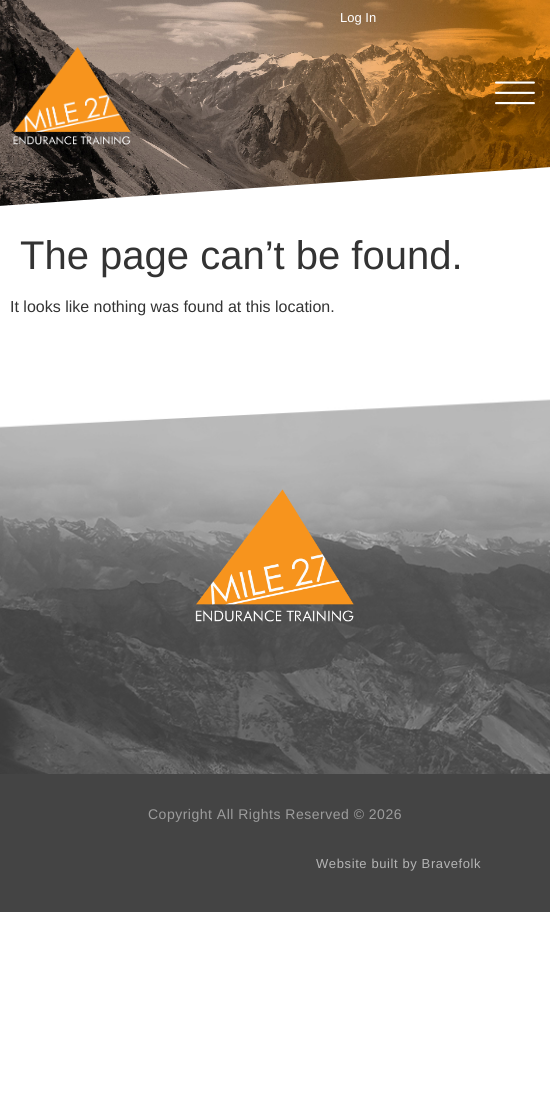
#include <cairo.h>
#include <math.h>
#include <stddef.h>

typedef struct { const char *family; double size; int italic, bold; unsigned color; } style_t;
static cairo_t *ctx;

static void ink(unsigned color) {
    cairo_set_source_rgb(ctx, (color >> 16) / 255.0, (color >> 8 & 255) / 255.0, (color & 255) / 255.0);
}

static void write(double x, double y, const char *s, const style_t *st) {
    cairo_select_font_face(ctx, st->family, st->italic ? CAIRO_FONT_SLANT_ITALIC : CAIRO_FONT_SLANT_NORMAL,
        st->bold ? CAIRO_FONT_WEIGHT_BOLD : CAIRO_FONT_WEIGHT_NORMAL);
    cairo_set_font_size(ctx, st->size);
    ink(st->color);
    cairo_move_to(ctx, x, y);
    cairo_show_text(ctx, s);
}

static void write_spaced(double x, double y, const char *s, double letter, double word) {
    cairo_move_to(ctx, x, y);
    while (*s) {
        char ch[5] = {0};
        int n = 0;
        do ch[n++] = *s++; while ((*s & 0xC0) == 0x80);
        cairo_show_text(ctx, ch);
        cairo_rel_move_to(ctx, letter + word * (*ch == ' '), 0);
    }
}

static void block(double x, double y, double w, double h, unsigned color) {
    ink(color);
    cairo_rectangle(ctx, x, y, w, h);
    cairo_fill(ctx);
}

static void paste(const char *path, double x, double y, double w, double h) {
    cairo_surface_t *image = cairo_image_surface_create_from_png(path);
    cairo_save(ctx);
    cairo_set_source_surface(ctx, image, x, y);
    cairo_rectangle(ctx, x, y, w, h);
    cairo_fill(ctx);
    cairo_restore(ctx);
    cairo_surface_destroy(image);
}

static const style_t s1 = {"Liberation Sans", 13, 0, 0, 0xffffff};
static const style_t s2 = {"Liberation Sans", 40, 0, 0, 0x333333};
static const style_t s3 = {"Liberation Sans", 16, 0, 0, 0x333333};

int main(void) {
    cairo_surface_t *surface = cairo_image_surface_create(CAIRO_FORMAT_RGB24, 550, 1099);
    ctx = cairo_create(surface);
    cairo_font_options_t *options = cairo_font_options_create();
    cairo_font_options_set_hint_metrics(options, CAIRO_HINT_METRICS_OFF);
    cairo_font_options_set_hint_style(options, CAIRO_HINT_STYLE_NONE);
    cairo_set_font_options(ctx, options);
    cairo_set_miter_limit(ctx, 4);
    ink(0xffffff);
    cairo_paint(ctx);
    paste("pic1.png", 0, 0, 550, 206);
    cairo_save(ctx);
    cairo_rectangle(ctx, 0, 152, 550, 72);
    cairo_clip(ctx);
    ink(0xffffff);
    cairo_new_path(ctx);
    cairo_move_to(ctx, -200, 220);
    cairo_line_to(ctx, -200, 225);
    cairo_line_to(ctx, 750, 225);
    cairo_line_to(ctx, 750, 153);
    cairo_close_path(ctx);
    cairo_fill(ctx);
    cairo_restore(ctx);
    write(340, 22, "Log In", &s1);
    paste("pic2.png", 13, 46, 118, 99);
    paste("pic3.png", 495, 81, 40, 24);
    write(20, 269, "The page can’t be found.", &s2);
    write(10, 312, "It looks like nothing was found at this location.", &s3);
    paste("pic4.png", 0, 399, 550, 375);
    paste("pic5.png", 195, 489, 159, 133);
    block(0, 774, 550, 138, 0x444444);
    cairo_set_font_size(ctx, 14);
    ink(0x9c9c9c);
    write_spaced(148, 819, "Copyright All Rights Reserved © 2026", 0.5, 0);
    cairo_set_font_size(ctx, 13);
    ink(0xb4b4b4);
    write_spaced(316, 868, "Website built by Bravefolk", 0.6, 0);
    cairo_surface_write_to_png(surface, "screenshot.png");
    cairo_font_options_destroy(options);
    cairo_destroy(ctx);
    cairo_surface_destroy(surface);
    return 0;
}
